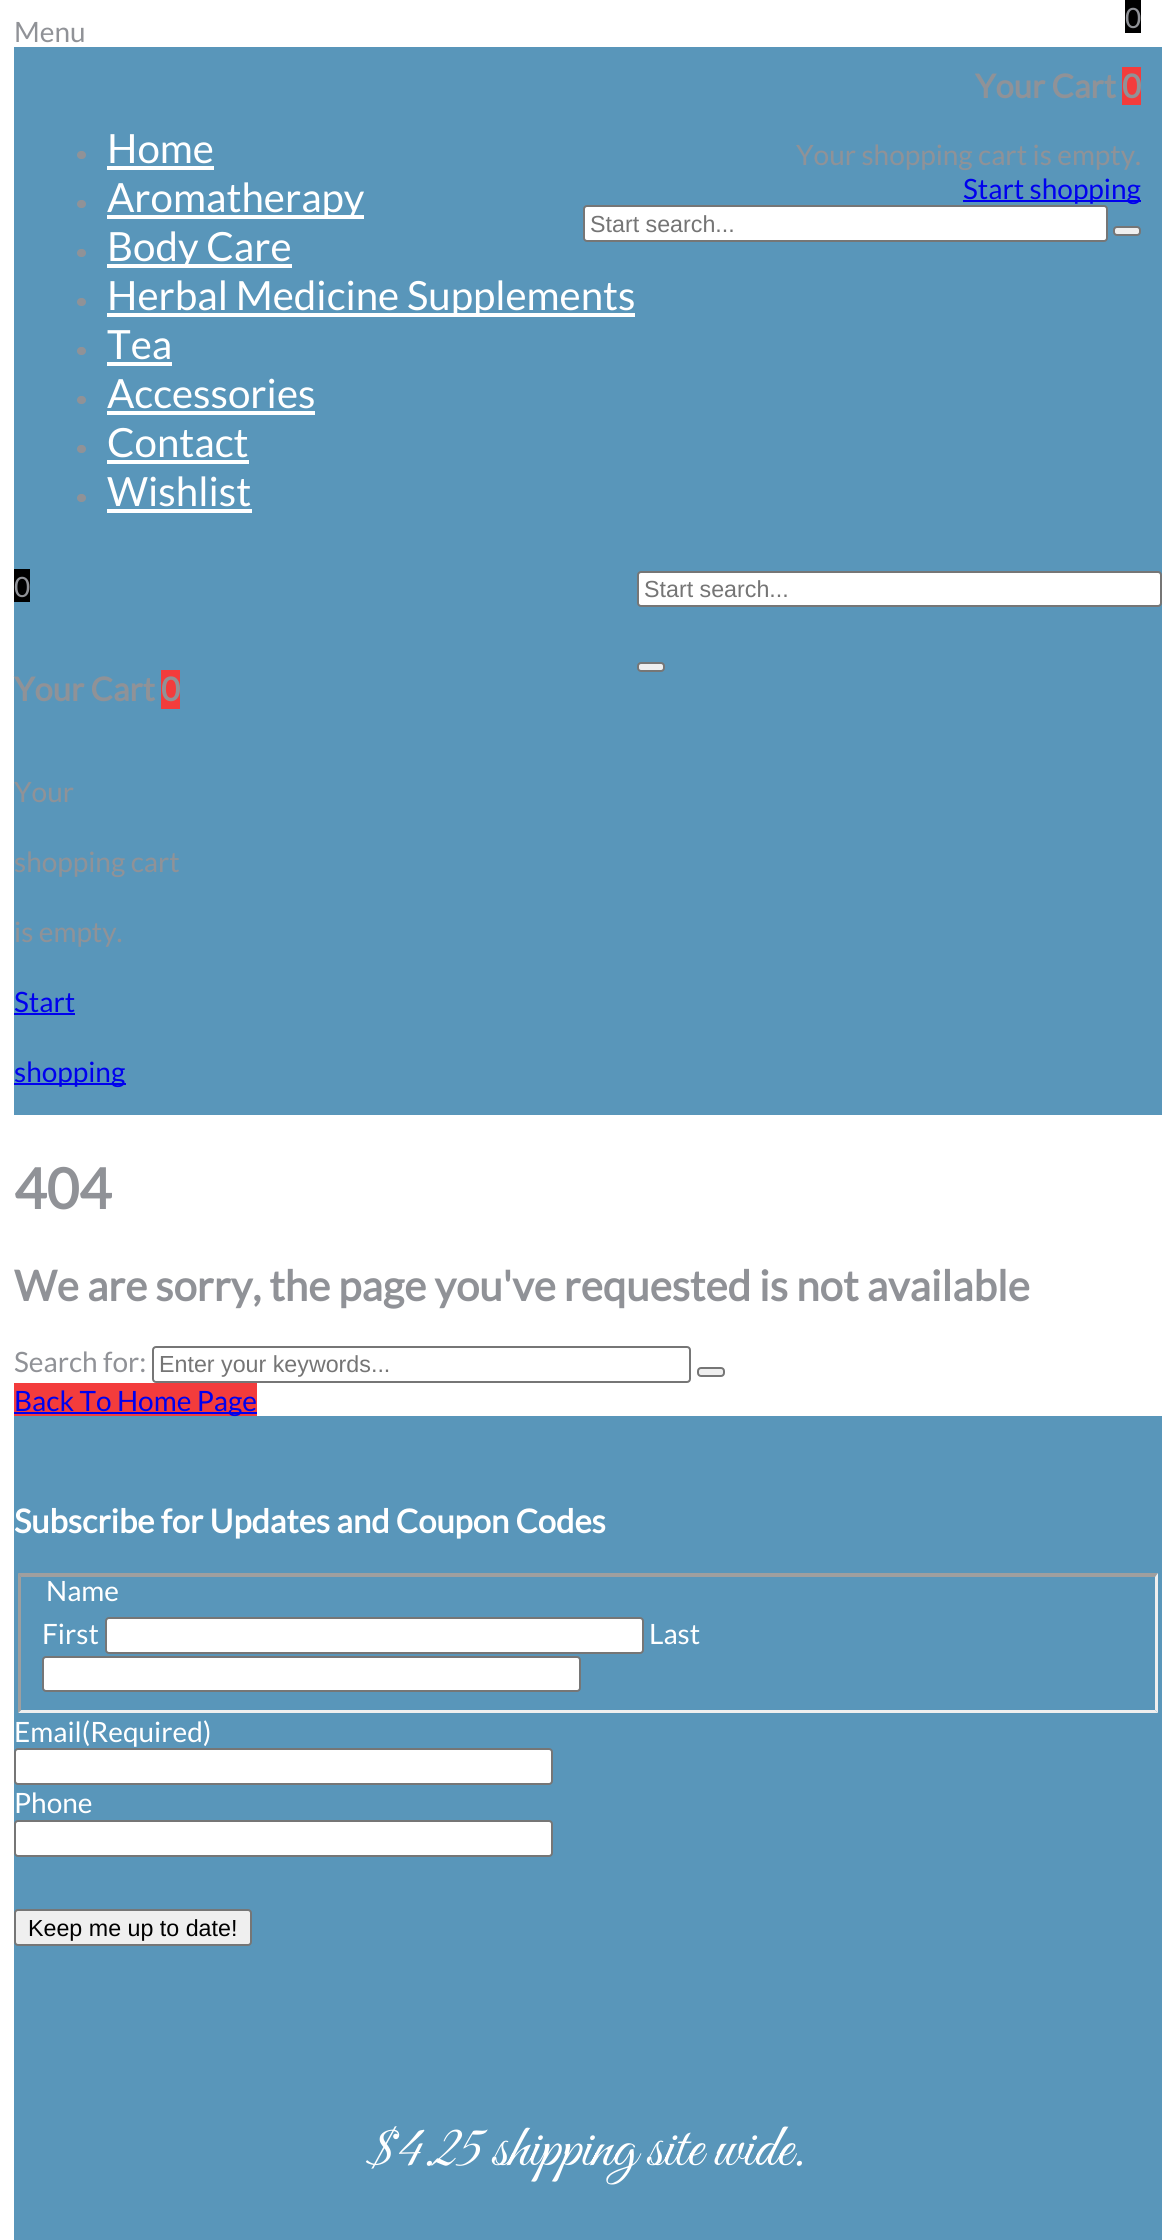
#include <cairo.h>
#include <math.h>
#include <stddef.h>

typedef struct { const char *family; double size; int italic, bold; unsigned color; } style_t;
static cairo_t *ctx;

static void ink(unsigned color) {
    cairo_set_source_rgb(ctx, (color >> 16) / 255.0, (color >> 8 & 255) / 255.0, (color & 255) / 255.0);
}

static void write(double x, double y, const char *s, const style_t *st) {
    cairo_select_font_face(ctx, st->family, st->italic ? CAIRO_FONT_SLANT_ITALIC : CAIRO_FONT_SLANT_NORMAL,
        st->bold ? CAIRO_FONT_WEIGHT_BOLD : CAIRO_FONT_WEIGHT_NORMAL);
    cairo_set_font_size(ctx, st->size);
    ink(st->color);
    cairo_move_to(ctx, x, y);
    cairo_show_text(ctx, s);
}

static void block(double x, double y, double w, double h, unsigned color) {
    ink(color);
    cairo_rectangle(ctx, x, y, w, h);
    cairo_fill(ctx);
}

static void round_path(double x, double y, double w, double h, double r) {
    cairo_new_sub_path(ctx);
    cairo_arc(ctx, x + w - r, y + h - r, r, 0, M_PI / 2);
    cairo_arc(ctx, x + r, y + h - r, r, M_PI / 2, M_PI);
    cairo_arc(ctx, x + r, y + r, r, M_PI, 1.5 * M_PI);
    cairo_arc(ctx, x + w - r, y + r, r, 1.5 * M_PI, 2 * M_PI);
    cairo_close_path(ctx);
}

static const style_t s1 = {"Lato", 40.25, 0, 0, 0xffffff};
static const style_t s2 = {"Lato", 28, 0, 0, 0x909297};
static const style_t s3 = {"Lato", 32.75, 0, 1, 0x909297};
static const style_t s4 = {"Lato", 28, 0, 0, 0x0000ee};
static const style_t s5 = {"Liberation Sans", 23.25, 0, 0, 0x757575};
static const style_t s6 = {"Lato", 56, 0, 1, 0x909297};
static const style_t s7 = {"Lato", 42, 0, 1, 0x909297};
static const style_t s8 = {"Lato", 32.75, 0, 1, 0xffffff};
static const style_t s9 = {"Lato", 28, 0, 0, 0xffffff};
static const style_t s10 = {"Liberation Sans", 23.25, 0, 0, 0x000000};
static const style_t s11 = {"Great Vibes", 61.25, 0, 0, 0xffffff};

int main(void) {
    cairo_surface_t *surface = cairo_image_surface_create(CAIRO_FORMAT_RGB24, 1176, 2240);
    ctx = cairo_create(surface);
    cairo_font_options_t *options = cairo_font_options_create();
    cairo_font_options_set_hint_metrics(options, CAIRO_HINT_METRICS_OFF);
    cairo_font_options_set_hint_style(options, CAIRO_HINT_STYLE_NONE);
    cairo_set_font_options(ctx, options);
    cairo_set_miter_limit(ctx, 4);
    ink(0xffffff);
    cairo_paint(ctx);
    block(14, 47, 1148, 1068, 0x5996ba);
    ink(0x909297);
    round_path(77, 151, 9, 8, 4);
    cairo_fill(ctx);
    write(107, 163, "Home", &s1);
    block(107, 166, 107, 4, 0xffffff);
    ink(0x909297);
    round_path(77, 200, 9, 8, 4);
    cairo_fill(ctx);
    block(107, 215, 257, 4, 0xffffff);
    write(107, 212, "Aromatherapy", &s1);
    ink(0x909297);
    round_path(77, 249, 9, 8, 4);
    cairo_fill(ctx);
    block(107, 264, 185, 4, 0xffffff);
    write(107, 261, "Body Care", &s1);
    ink(0x909297);
    round_path(77, 298, 9, 8, 4);
    cairo_fill(ctx);
    block(107, 313, 528, 4, 0xffffff);
    write(107, 310, "Herbal Medicine Supplements", &s1);
    ink(0x909297);
    round_path(77, 347, 9, 8, 4);
    cairo_fill(ctx);
    write(107, 359, "Tea", &s1);
    block(107, 362, 65, 4, 0xffffff);
    ink(0x909297);
    round_path(77, 396, 9, 8, 4);
    cairo_fill(ctx);
    write(107, 408, "Accessories", &s1);
    block(107, 411, 208, 4, 0xffffff);
    ink(0x909297);
    round_path(77, 445, 9, 8, 4);
    cairo_fill(ctx);
    write(107, 457, "Contact", &s1);
    block(107, 460, 142, 4, 0xffffff);
    ink(0x909297);
    round_path(77, 494, 9, 8, 4);
    cairo_fill(ctx);
    write(107, 506, "Wishlist", &s1);
    block(107, 509, 145, 4, 0xffffff);
    block(1125, 0, 16, 33, 0x000000);
    write(1125, 28, "0", &s2);
    write(975, 98, "Your Cart", &s3);
    block(1122, 67, 19, 38, 0xf33c3c);
    write(1122, 98, "0", &s3);
    write(796, 165, "Your shopping cart is empty.", &s2);
    block(963, 200, 178, 2, 0x0000ee);
    write(963, 199, "Start shopping", &s4);
    ink(0xffffff);
    round_path(584, 206, 523, 35, 3);
    cairo_fill_preserve(ctx);
    ink(0x767676);
    cairo_stroke(ctx);
    write(590, 232, "Start search...", &s5);
    ink(0xefefef);
    round_path(1114, 227, 26, 8, 3);
    cairo_fill_preserve(ctx);
    ink(0x767676);
    cairo_stroke(ctx);
    block(14, 569, 16, 33, 0x000000);
    write(14, 597, "0", &s2);
    write(14, 701, "Your Cart", &s3);
    block(161, 670, 19, 39, 0xf33c3c);
    write(161, 701, "0", &s3);
    write(14, 802, "Your", &s2);
    write(14, 872, "shopping cart", &s2);
    write(14, 942, "is empty.", &s2);
    write(14, 1012, "Start", &s4);
    block(14, 1013, 61, 2, 0x0000ee);
    block(14, 1083, 112, 2, 0x0000ee);
    write(14, 1082, "shopping", &s4);
    ink(0xffffff);
    round_path(638, 572, 523, 34, 3);
    cairo_fill_preserve(ctx);
    ink(0x767676);
    cairo_stroke(ctx);
    write(644, 597, "Start search...", &s5);
    ink(0xefefef);
    round_path(638, 663, 26, 8, 3);
    cairo_fill_preserve(ctx);
    ink(0x767676);
    cairo_stroke(ctx);
    write(14, 42, "Menu", &s2);
    write(14, 1209, "404", &s6);
    write(14, 1301, "We are sorry, the page you've requested is not available", &s7);
    write(14, 1372, "Search for:", &s2);
    round_path(153, 1347, 537, 35, 3);
    ink(0x767676);
    cairo_stroke(ctx);
    write(159, 1372, "Enter your keywords...", &s5);
    ink(0xefefef);
    round_path(698, 1368, 26, 8, 3);
    cairo_fill_preserve(ctx);
    ink(0x767676);
    cairo_stroke(ctx);
    block(14, 1383, 243, 33, 0xf33c3c);
    block(14, 1412, 243, 2, 0x0000ee);
    block(14, 1416, 1148, 824, 0x5996ba);
    write(14, 1411, "Back To Home Page", &s4);
    write(14, 1533, "Subscribe for Updates and Coupon Codes", &s8);
    ink(0x9f9f9f);
    cairo_new_path(ctx);
    cairo_move_to(ctx, 18, 1573);
    cairo_line_to(ctx, 1158, 1573);
    cairo_line_to(ctx, 1155, 1577);
    cairo_line_to(ctx, 21, 1577);
    cairo_close_path(ctx);
    cairo_fill(ctx);
    ink(0xefefef);
    cairo_new_path(ctx);
    cairo_move_to(ctx, 1158, 1573);
    cairo_line_to(ctx, 1158, 1713);
    cairo_line_to(ctx, 1155, 1710);
    cairo_line_to(ctx, 1155, 1577);
    cairo_close_path(ctx);
    cairo_fill(ctx);
    cairo_new_path(ctx);
    cairo_move_to(ctx, 1158, 1713);
    cairo_line_to(ctx, 18, 1713);
    cairo_line_to(ctx, 21, 1710);
    cairo_line_to(ctx, 1155, 1710);
    cairo_close_path(ctx);
    cairo_fill(ctx);
    ink(0x9f9f9f);
    cairo_new_path(ctx);
    cairo_move_to(ctx, 18, 1713);
    cairo_line_to(ctx, 18, 1573);
    cairo_line_to(ctx, 21, 1577);
    cairo_line_to(ctx, 21, 1710);
    cairo_close_path(ctx);
    cairo_fill(ctx);
    write(46, 1601, "Name", &s9);
    write(42, 1644, "First", &s9);
    round_path(106, 1618, 537, 35, 3);
    cairo_fill_preserve(ctx);
    ink(0x767676);
    cairo_stroke(ctx);
    write(649, 1644, "Last", &s9);
    round_path(43, 1657, 537, 34, 3);
    cairo_fill_preserve(ctx);
    ink(0x767676);
    cairo_stroke(ctx);
    write(14, 1742, "Email(Required)", &s9);
    round_path(15, 1749, 537, 35, 3);
    cairo_fill_preserve(ctx);
    ink(0x767676);
    cairo_stroke(ctx);
    write(14, 1813, "Phone", &s9);
    round_path(15, 1821, 537, 35, 3);
    cairo_fill_preserve(ctx);
    ink(0x767676);
    cairo_stroke(ctx);
    ink(0xefefef);
    round_path(15, 1910, 236, 35, 3);
    cairo_fill_preserve(ctx);
    ink(0x767676);
    cairo_stroke(ctx);
    write(28, 1936, "Keep me up to date!", &s10);
    write(370, 2165, "$4.25 shipping site wide.", &s11);
    cairo_surface_write_to_png(surface, "screenshot.png");
    cairo_font_options_destroy(options);
    cairo_destroy(ctx);
    cairo_surface_destroy(surface);
    return 0;
}
